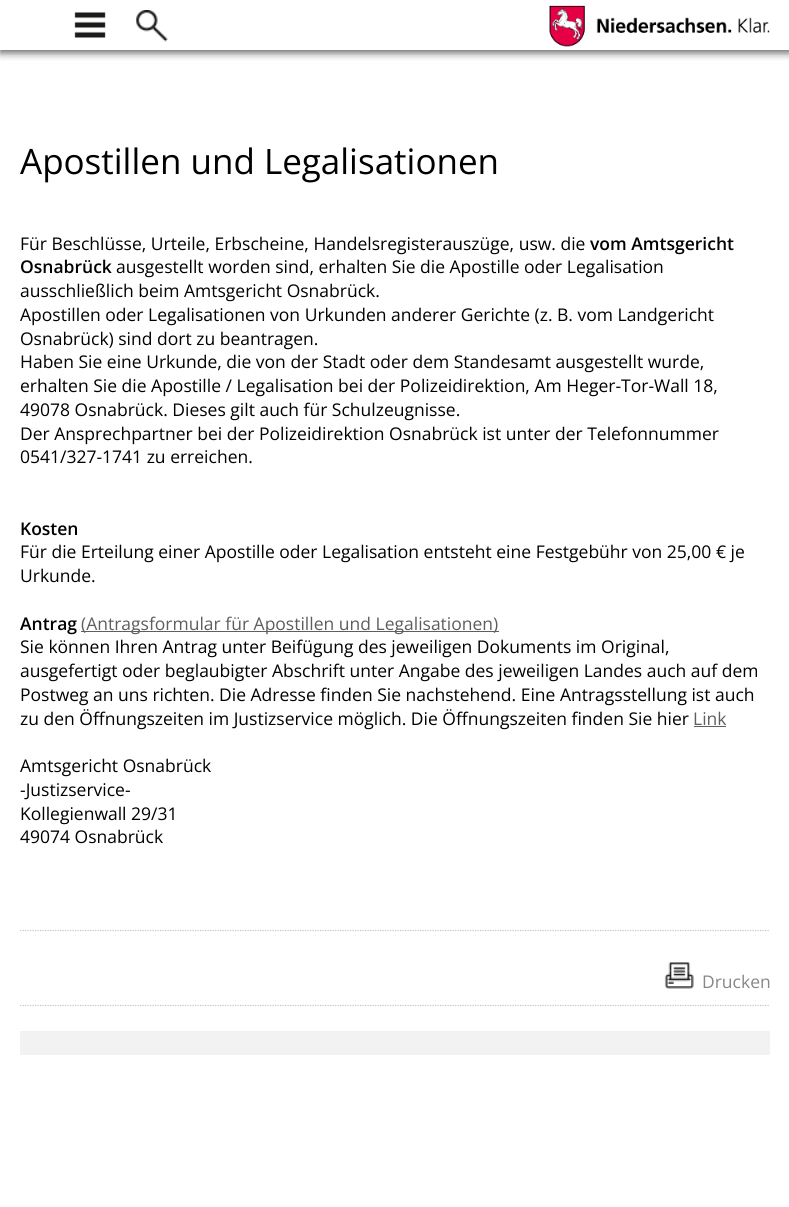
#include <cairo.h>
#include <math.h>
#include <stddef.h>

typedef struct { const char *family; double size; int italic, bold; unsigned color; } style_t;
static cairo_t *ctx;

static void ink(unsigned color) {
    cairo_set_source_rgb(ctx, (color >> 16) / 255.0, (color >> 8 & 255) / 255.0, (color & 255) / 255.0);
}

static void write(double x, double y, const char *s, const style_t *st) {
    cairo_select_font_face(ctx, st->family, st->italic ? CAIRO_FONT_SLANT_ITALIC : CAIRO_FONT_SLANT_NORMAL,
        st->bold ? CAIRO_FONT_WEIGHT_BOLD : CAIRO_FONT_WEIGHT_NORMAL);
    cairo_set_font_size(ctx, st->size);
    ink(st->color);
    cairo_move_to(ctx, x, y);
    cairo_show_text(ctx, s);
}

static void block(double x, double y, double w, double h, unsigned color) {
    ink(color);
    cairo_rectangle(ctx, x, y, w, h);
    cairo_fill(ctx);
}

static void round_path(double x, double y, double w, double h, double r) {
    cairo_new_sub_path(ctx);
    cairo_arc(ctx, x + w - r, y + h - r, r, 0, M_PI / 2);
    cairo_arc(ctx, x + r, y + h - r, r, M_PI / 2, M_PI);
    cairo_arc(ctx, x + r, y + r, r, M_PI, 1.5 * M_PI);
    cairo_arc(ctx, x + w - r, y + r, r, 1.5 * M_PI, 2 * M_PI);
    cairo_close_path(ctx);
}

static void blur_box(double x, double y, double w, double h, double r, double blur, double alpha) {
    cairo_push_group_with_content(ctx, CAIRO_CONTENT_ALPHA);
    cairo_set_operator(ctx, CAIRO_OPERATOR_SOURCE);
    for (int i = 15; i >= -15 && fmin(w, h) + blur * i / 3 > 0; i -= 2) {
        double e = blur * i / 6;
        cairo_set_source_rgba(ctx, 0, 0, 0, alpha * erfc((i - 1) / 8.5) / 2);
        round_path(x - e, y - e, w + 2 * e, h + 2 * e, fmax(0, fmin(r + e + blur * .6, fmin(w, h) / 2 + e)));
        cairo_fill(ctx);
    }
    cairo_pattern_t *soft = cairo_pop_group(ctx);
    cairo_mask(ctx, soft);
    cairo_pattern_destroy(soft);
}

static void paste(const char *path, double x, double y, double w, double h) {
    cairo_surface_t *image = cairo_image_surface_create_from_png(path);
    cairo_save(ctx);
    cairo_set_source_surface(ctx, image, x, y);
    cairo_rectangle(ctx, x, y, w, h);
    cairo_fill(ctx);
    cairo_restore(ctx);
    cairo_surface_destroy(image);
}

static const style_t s1 = {"Open Sans", 35, 0, 0, 0x000000};
static const style_t s2 = {"Open Sans", 17.5, 0, 0, 0x000000};
static const style_t s3 = {"Open Sans SemiBold", 17.5, 0, 0, 0x000000};
static const style_t s4 = {"Open Sans", 17.5, 0, 0, 0x5f5e5e};
static const style_t s5 = {"Open Sans", 17.5, 0, 0, 0x878787};

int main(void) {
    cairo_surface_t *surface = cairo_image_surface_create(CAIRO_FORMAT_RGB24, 789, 1207);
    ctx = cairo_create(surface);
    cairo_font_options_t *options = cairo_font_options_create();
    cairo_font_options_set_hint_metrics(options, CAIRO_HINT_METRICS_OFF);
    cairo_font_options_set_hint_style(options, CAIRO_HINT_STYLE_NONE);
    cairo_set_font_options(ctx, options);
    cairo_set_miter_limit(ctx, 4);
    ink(0xffffff);
    cairo_paint(ctx);
    cairo_save(ctx);
    cairo_rectangle(ctx, 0, 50, 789, 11);
    cairo_clip(ctx);
    ink(0x666666);
    blur_box(0, 3, 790, 50, 0, 4, 1);
    cairo_restore(ctx);
    paste("pic1.png", 74, 12, 32, 26);
    paste("pic2.png", 136, 10, 32, 32);
    paste("pic3.png", 549, 5, 178, 42);
    paste("pic4.png", 727, 17, 43, 16);
    write(20, 174, "Apostillen und Legalisationen", &s1);
    write(20, 250, "Für Beschlüsse, Urteile, Erbscheine, Handelsregisterauszüge, usw. die", &s2);
    write(590, 250, "vom Amtsgericht", &s3);
    write(20, 273, "Osnabrück", &s3);
    write(116, 273, "ausgestellt worden sind, erhalten Sie die Apostille oder Legalisation", &s2);
    write(20, 297, "ausschließlich beim Amtsgericht Osnabrück.", &s2);
    write(20, 321, "Apostillen oder Legalisationen von Urkunden anderer Gerichte (z. B. vom Landgericht", &s2);
    write(20, 345, "Osnabrück) sind dort zu beantragen.", &s2);
    write(20, 368, "Haben Sie eine Urkunde, die von der Stadt oder dem Standesamt ausgestellt wurde,", &s2);
    write(20, 392, "erhalten Sie die Apostille / Legalisation bei der Polizeidirektion, Am Heger-Tor-Wall 18,", &s2);
    write(20, 416, "49078 Osnabrück. Dieses gilt auch für Schulzeugnisse.", &s2);
    write(20, 440, "Der Ansprechpartner bei der Polizeidirektion Osnabrück ist unter der Telefonnummer", &s2);
    write(20, 463, "0541/327-1741 zu erreichen.", &s2);
    write(20, 535, "Kosten", &s3);
    write(20, 558, "Für die Erteilung einer Apostille oder Legalisation entsteht eine Festgebühr von 25,00 € je", &s2);
    write(20, 582, "Urkunde.", &s2);
    write(20, 630, "Antrag", &s3);
    block(81, 631, 418, 1, 0x5f5e5e);
    write(81, 630, "(Antragsformular für Apostillen und Legalisationen)", &s4);
    write(20, 653, "Sie können Ihren Antrag unter Beifügung des jeweiligen Dokuments im Original,", &s2);
    write(20, 677, "ausgefertigt oder beglaubigter Abschrift unter Angabe des jeweiligen Landes auch auf dem", &s2);
    write(20, 701, "Postweg an uns richten. Die Adresse finden Sie nachstehend. Eine Antragsstellung ist auch", &s2);
    write(20, 725, "zu den Öffnungszeiten im Justizservice möglich. Die Öffnungszeiten finden Sie hier", &s2);
    write(693, 725, "Link", &s4);
    block(694, 726, 32, 1, 0x5f5e5e);
    write(20, 772, "Amtsgericht Osnabrück", &s2);
    write(20, 796, "-Justizservice-", &s2);
    write(20, 820, "Kollegienwall 29/31", &s2);
    write(20, 843, "49074 Osnabrück", &s2);
    cairo_new_path(ctx);
    cairo_move_to(ctx, 20, 930.5);
    cairo_line_to(ctx, 770, 930.5);
    ink(0xc6c6c6);
    cairo_set_line_width(ctx, 1.2);
    cairo_set_dash(ctx, (double[]){1.25, 1.25}, 2, 0);
    cairo_stroke(ctx);
    paste("pic5.png", 664, 962, 30, 27);
    write(702, 988, "Drucken", &s5);
    block(20, 1031, 750, 24, 0xf2f2f2);
    cairo_new_path(ctx);
    cairo_move_to(ctx, 20, 1005.5);
    cairo_line_to(ctx, 770, 1005.5);
    ink(0xc6c6c6);
    cairo_stroke(ctx);
    cairo_surface_write_to_png(surface, "screenshot.png");
    cairo_font_options_destroy(options);
    cairo_destroy(ctx);
    cairo_surface_destroy(surface);
    return 0;
}
